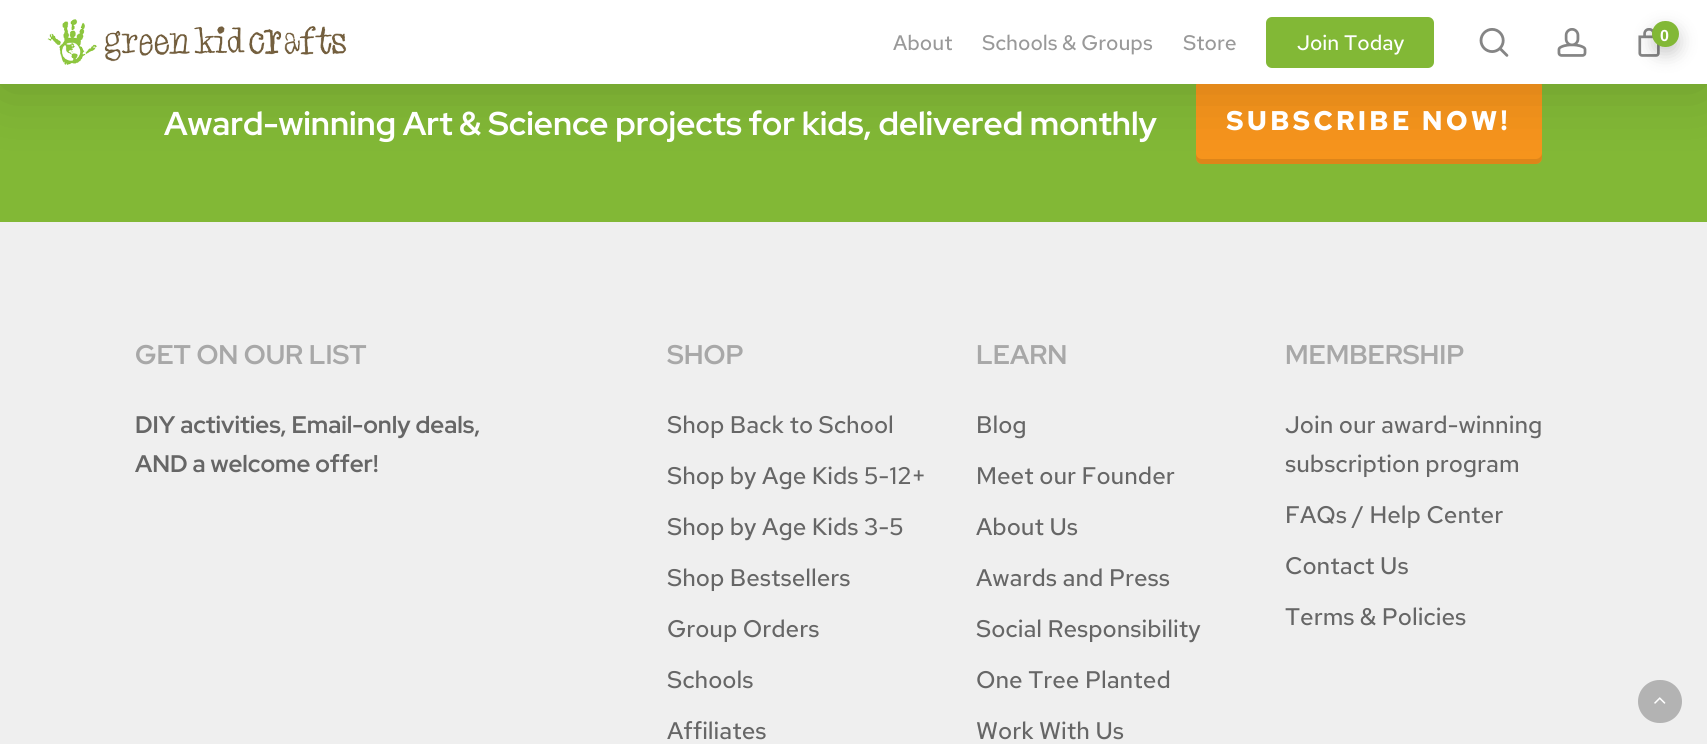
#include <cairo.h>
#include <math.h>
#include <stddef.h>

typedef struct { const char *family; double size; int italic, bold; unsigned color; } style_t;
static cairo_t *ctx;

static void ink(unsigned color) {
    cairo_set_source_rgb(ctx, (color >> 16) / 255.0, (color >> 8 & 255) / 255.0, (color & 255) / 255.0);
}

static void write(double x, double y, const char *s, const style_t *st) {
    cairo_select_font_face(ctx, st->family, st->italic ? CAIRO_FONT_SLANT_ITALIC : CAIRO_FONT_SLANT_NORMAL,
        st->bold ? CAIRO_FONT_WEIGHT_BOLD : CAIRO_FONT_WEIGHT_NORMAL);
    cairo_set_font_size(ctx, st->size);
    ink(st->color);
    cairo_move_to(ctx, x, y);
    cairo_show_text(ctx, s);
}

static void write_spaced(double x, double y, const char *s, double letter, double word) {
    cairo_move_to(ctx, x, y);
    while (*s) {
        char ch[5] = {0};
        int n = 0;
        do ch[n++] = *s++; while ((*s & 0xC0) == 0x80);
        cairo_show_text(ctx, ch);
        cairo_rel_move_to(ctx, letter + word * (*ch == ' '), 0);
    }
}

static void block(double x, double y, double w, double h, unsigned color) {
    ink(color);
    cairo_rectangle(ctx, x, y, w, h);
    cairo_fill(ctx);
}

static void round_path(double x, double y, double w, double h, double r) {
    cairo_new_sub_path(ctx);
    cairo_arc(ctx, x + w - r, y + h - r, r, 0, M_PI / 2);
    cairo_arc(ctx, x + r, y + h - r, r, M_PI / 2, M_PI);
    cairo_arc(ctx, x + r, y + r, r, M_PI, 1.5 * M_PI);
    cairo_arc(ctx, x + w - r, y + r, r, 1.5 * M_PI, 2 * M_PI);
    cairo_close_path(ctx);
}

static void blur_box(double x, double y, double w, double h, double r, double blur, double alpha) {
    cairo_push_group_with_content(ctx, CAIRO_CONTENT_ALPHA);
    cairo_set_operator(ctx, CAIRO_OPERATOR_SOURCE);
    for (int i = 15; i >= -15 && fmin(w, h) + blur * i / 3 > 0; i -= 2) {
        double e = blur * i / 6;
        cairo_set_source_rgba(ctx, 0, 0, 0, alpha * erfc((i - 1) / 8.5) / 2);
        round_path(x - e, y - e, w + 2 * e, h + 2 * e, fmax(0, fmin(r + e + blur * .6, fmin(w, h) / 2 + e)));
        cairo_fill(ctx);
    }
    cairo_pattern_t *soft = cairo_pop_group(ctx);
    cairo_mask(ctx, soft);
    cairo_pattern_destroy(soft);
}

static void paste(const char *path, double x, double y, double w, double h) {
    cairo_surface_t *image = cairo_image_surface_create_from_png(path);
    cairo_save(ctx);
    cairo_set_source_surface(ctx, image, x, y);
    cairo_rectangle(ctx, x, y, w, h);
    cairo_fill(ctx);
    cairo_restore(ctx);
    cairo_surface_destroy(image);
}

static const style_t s1 = {"Red Hat Text Medium", 21, 0, 0, 0x999999};
static const style_t s2 = {"Red Hat Text Medium", 21, 0, 0, 0xffffff};
static const style_t s3 = {"Liberation Sans", 16, 0, 1, 0xffffff};
static const style_t s4 = {"Red Hat Display", 33, 0, 1, 0xffffff};
static const style_t s5 = {"Red Hat Display", 27, 0, 1, 0xa8a8a8};
static const style_t s6 = {"Red Hat Display", 24, 0, 1, 0x666666};
static const style_t s7 = {"Red Hat Text Medium", 24, 0, 0, 0x666666};

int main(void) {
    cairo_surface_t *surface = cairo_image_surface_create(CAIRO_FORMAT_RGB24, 1707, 744);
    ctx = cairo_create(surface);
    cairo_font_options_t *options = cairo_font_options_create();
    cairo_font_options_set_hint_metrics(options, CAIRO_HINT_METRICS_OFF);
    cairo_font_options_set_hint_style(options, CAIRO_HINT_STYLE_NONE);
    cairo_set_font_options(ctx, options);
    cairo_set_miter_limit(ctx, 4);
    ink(0xefefef);
    cairo_paint(ctx);
    block(0, 84, 1707, 138, 0x82b836);
    ink(0xf6941c);
    round_path(1196, 80, 346, 84, 6);
    cairo_fill(ctx);
    cairo_set_source_rgba(ctx, 0, 0, 0, 0.1);
    cairo_new_path(ctx);
    cairo_move_to(ctx, 1196, 153);
    cairo_line_to(ctx, 1196, 158);
    cairo_curve_to(ctx, 1196, 161, 1199, 164, 1202, 164);
    cairo_line_to(ctx, 1536, 164);
    cairo_curve_to(ctx, 1539, 164, 1542, 161, 1542, 158);
    cairo_line_to(ctx, 1542, 153);
    cairo_curve_to(ctx, 1542, 156, 1539, 159, 1536, 159);
    cairo_line_to(ctx, 1202, 159);
    cairo_curve_to(ctx, 1198, 159, 1196, 156, 1196, 153);
    cairo_close_path(ctx);
    cairo_fill(ctx);
    ink(0x000000);
    blur_box(0, -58, 1707, 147, 0, 34, 0.15);
    block(0, 0, 1707, 84, 0xffffff);
    paste("pic1.png", 47, 19, 300, 46);
    write(893, 50, "About", &s1);
    write(982, 50, "Schools & Groups", &s1);
    write(1183, 50, "Store", &s1);
    ink(0x82b836);
    round_path(1266, 17, 168, 51, 6);
    cairo_fill(ctx);
    write(1297, 50, "Join Today", &s2);
    paste("pic2.png", 1479, 28, 30, 29);
    paste("pic3.png", 1557, 28, 30, 29);
    paste("pic4.png", 1638, 28, 22, 29);
    ink(0x000000);
    blur_box(1652, 29, 27, 25, 12.5, 9, 0.2);
    ink(0x82b836);
    round_path(1652, 21, 27, 26, 13);
    cairo_fill(ctx);
    write(1660, 41, "0", &s3);
    write(164, 135, "Award-winning Art & Science projects for kids, delivered monthly", &s4);
    cairo_select_font_face(ctx, "Red Hat Text", CAIRO_FONT_SLANT_NORMAL, CAIRO_FONT_WEIGHT_BOLD);
    cairo_set_font_size(ctx, 27);
    write_spaced(1226, 130, "SUBSCRIBE NOW!", 3, 0);
    write(135, 364, "GET ON OUR LIST", &s5);
    write(135, 433, "DIY activities, Email-only deals,", &s6);
    write(135, 472, "AND a welcome offer!", &s6);
    write(667, 364, "SHOP", &s5);
    write(667, 433, "Shop Back to School", &s7);
    write(667, 484, "Shop by Age Kids 5-12+", &s7);
    write(667, 535, "Shop by Age Kids 3-5", &s7);
    write(667, 586, "Shop Bestsellers", &s7);
    write(667, 637, "Group Orders", &s7);
    write(667, 688, "Schools", &s7);
    write(667, 739, "Affiliates", &s7);
    write(976, 364, "LEARN", &s5);
    write(976, 433, "Blog", &s7);
    write(976, 484, "Meet our Founder", &s7);
    write(976, 535, "About Us", &s7);
    write(976, 586, "Awards and Press", &s7);
    write(976, 637, "Social Responsibility", &s7);
    write(976, 688, "One Tree Planted", &s7);
    write(976, 739, "Work With Us", &s7);
    write(1285, 364, "MEMBERSHIP", &s5);
    write(1285, 433, "Join our award-winning", &s7);
    write(1285, 472, "subscription program", &s7);
    write(1285, 523, "FAQs / Help Center", &s7);
    write(1285, 574, "Contact Us", &s7);
    write(1285, 625, "Terms & Policies", &s7);
    ink(0xb3b3b3);
    round_path(1638, 680, 44, 43, 21.5);
    cairo_fill(ctx);
    paste("pic5.png", 1654, 697, 12, 7);
    cairo_surface_write_to_png(surface, "screenshot.png");
    cairo_font_options_destroy(options);
    cairo_destroy(ctx);
    cairo_surface_destroy(surface);
    return 0;
}
